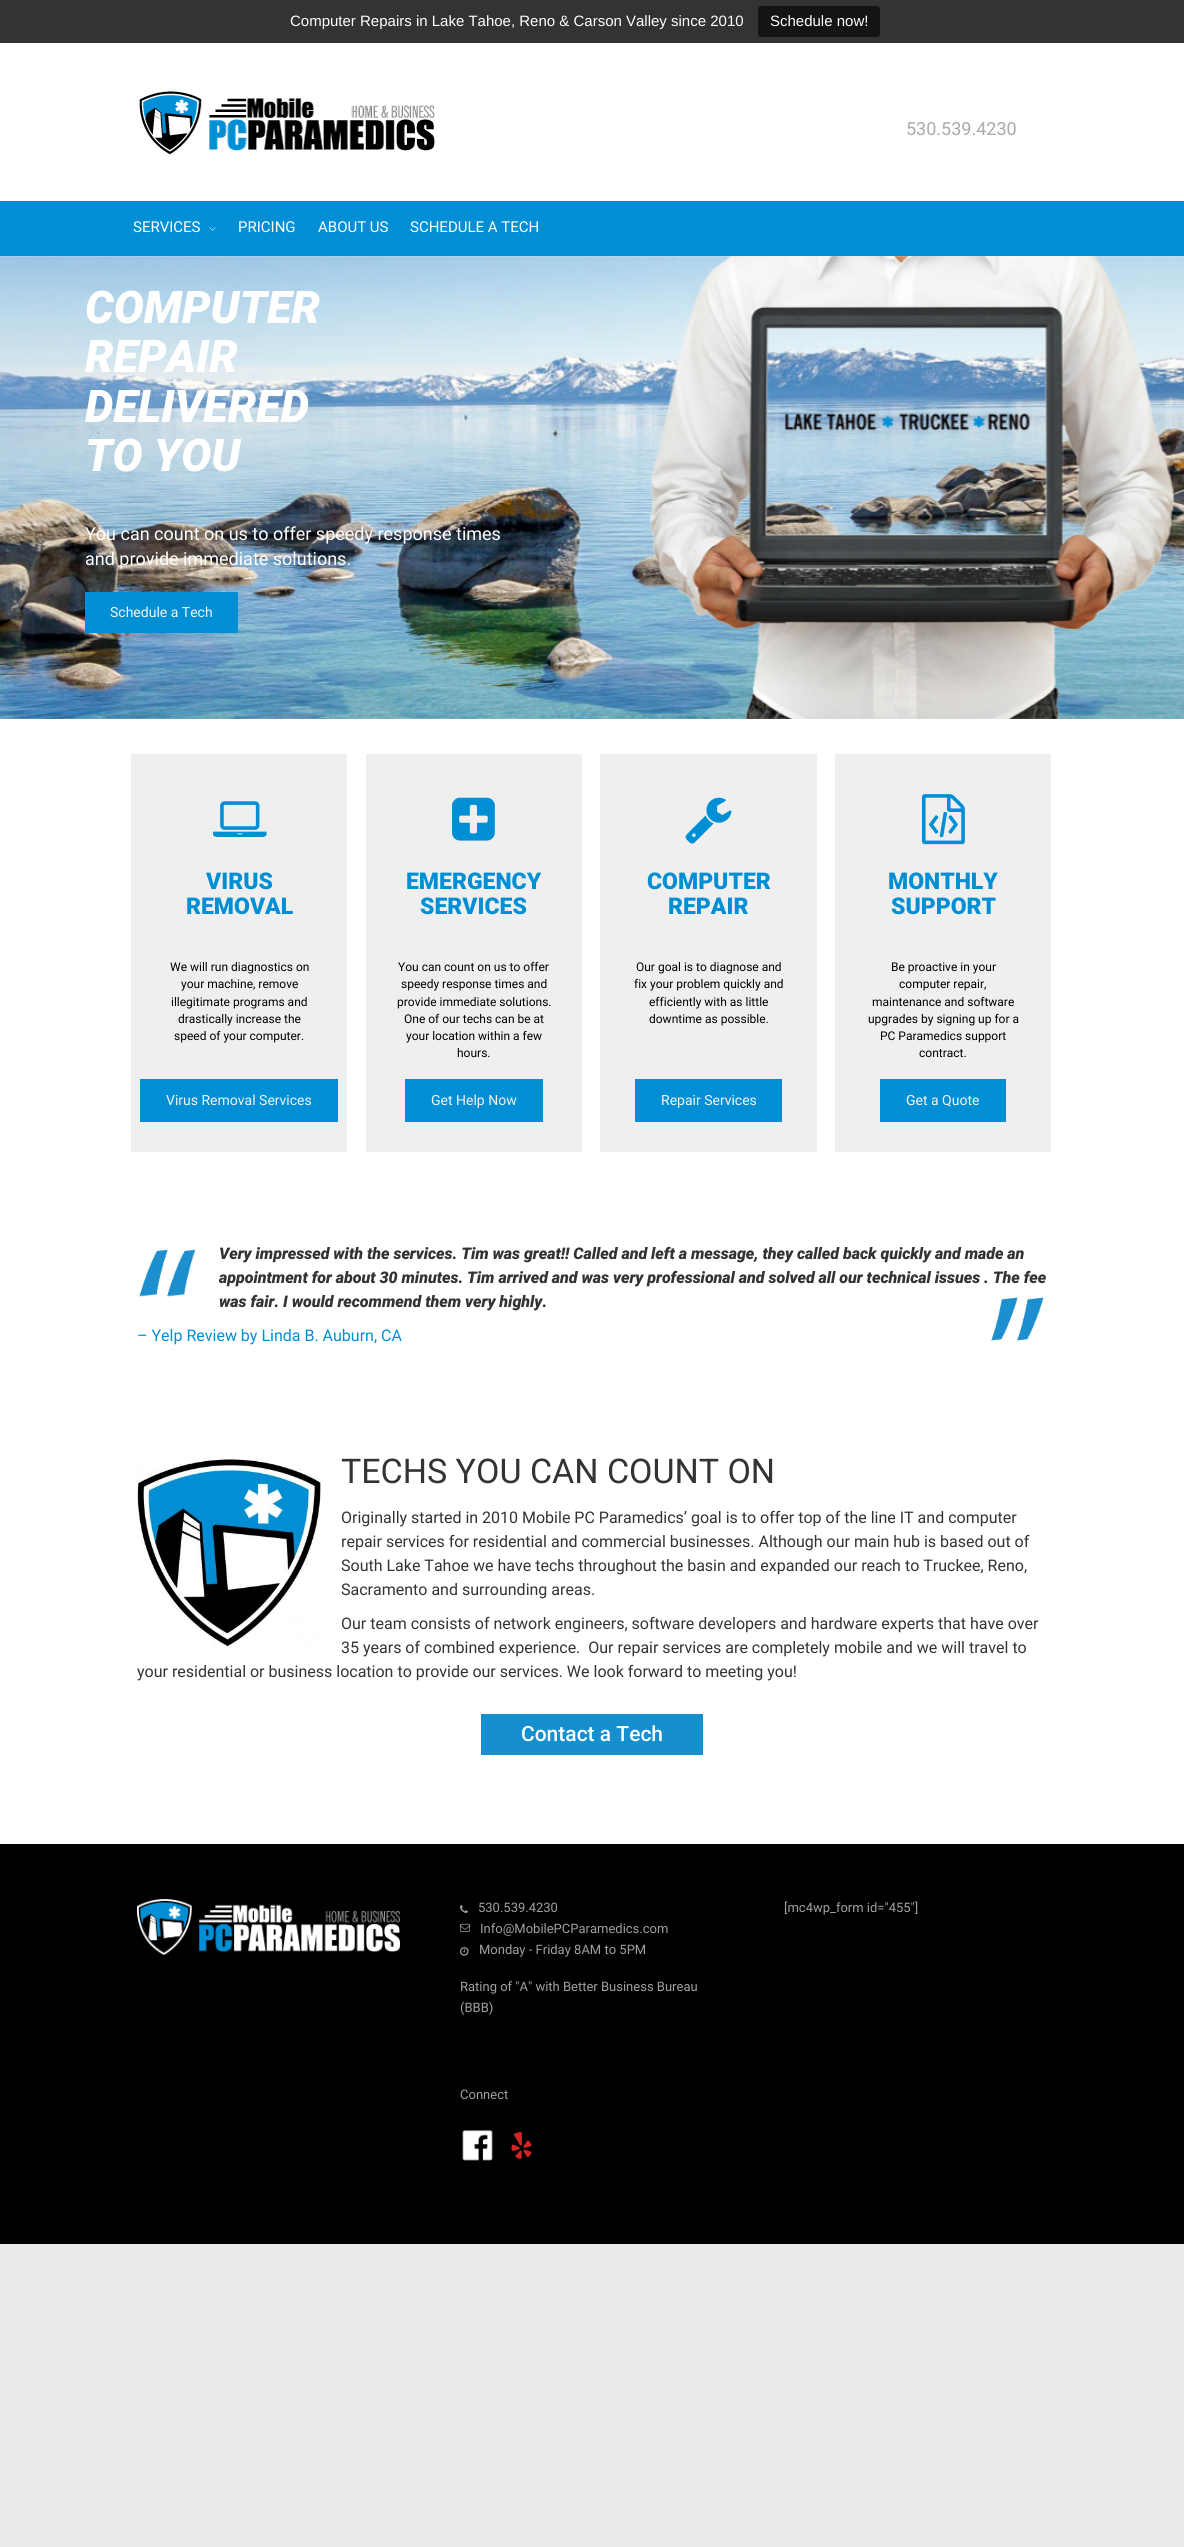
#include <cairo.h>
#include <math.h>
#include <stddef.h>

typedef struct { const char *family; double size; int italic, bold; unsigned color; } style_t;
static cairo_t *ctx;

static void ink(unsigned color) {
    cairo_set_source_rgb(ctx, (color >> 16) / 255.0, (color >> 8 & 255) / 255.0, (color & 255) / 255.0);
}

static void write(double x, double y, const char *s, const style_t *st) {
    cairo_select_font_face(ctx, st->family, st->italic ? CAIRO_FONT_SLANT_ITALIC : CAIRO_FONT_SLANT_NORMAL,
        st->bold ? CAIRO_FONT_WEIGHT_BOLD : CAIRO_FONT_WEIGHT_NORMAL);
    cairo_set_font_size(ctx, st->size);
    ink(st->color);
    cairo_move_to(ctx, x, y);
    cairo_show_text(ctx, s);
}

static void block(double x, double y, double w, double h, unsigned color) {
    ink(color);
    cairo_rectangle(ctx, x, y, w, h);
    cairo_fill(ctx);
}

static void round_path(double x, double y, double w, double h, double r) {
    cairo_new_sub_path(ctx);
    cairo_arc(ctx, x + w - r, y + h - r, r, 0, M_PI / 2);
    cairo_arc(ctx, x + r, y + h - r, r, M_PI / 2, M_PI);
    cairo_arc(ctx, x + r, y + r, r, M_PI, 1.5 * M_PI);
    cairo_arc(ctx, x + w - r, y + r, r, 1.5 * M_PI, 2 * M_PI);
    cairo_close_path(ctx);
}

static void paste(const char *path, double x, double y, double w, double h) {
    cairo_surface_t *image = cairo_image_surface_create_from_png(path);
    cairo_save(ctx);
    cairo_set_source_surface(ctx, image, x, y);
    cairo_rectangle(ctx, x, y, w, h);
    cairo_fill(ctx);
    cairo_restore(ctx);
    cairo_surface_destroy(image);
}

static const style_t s1 = {"Liberation Sans", 15, 0, 0, 0xffffff};
static const style_t s2 = {"Roboto", 18, 0, 0, 0xaaaaaa};
static const style_t s3 = {"Roboto", 15, 0, 0, 0xffffff};
static const style_t s4 = {"Roboto Black", 45, 1, 0, 0xffffff};
static const style_t s5 = {"Roboto", 18, 0, 0, 0xffffff};
static const style_t s6 = {"Roboto", 14, 0, 0, 0xf4f4f4};
static const style_t s7 = {"Roboto Black", 23, 0, 0, 0x008fd5};
static const style_t s8 = {"Roboto", 12, 0, 0, 0x000000};
static const style_t s9 = {"Roboto Black", 16, 1, 0, 0x333333};
static const style_t s10 = {"Roboto", 16, 0, 0, 0x008fd5};
static const style_t s11 = {"Roboto", 34, 0, 0, 0x333333};
static const style_t s12 = {"Roboto", 16, 0, 0, 0x333333};
static const style_t s13 = {"Roboto Medium", 21, 0, 0, 0xffffff};
static const style_t s14 = {"Roboto", 13, 0, 0, 0xa0a0a0};

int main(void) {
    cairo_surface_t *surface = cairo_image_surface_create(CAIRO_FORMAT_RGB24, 1184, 2547);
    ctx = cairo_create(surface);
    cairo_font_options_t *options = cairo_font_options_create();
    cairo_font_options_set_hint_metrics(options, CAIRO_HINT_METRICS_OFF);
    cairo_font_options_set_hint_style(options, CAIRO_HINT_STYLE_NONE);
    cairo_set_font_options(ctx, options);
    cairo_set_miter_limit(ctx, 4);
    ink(0xecebe9);
    cairo_paint(ctx);
    block(0, 0, 1184, 43, 0x333333);
    write(290, 26, "Computer Repairs in Lake Tahoe, Reno & Carson Valley since 2010", &s1);
    ink(0x141414);
    round_path(758, 6, 122, 31, 3);
    cairo_fill(ctx);
    write(770, 26, "Schedule now!", &s1);
    block(0, 43, 1184, 158, 0xffffff);
    paste("pic1.png", 139, 91, 296, 63);
    write(906, 135, "530.539.4230", &s2);
    block(0, 201, 1184, 55, 0x008fd5);
    write(133, 232, "SERVICES", &s3);
    paste("pic2.png", 209, 227, 7, 4);
    write(238, 232, "PRICING", &s3);
    write(318, 232, "ABOUT US", &s3);
    write(410, 232, "SCHEDULE A TECH", &s3);
    paste("pic3.png", 0, 256, 1184, 463);
    write(85, 323, "COMPUTER", &s4);
    write(85, 372, "REPAIR", &s4);
    write(85, 422, "DELIVERED", &s4);
    write(85, 471, "TO YOU", &s4);
    write(85, 540, "You can count on us to offer speedy response times", &s5);
    write(85, 565, "and provide immediate solutions.", &s5);
    block(85, 592, 153, 41, 0x008fd5);
    write(110, 617, "Schedule a Tech", &s6);
    block(0, 719, 1184, 1125, 0xffffff);
    block(131, 754, 216, 398, 0xefefef);
    paste("pic4.png", 213, 801, 54, 36);
    write(206, 889, "VIRUS", &s7);
    write(186, 914, "REMOVAL", &s7);
    write(170, 971, "We will run diagnostics on", &s8);
    write(181, 988, "your machine, remove", &s8);
    write(171, 1006, "illegitimate programs and", &s8);
    write(178, 1023, "drastically increase the", &s8);
    write(174, 1040, "speed of your computer.", &s8);
    block(140, 1079, 198, 43, 0x008fd5);
    write(166, 1105, "Virus Removal Services", &s6);
    block(366, 754, 216, 398, 0xefefef);
    paste("pic5.png", 452, 797, 43, 44);
    write(406, 889, "EMERGENCY", &s7);
    write(420, 914, "SERVICES", &s7);
    write(398, 971, "You can count on us to offer", &s8);
    write(401, 988, "speedy response times and", &s8);
    write(397, 1006, "provide immediate solutions.", &s8);
    write(404, 1023, "One of our techs can be at", &s8);
    write(406, 1040, "your location within a few", &s8);
    write(457, 1057, "hours.", &s8);
    block(405, 1079, 138, 43, 0x008fd5);
    write(431, 1105, "Get Help Now", &s6);
    block(600, 754, 217, 398, 0xefefef);
    paste("pic6.png", 685, 797, 47, 47);
    write(647, 889, "COMPUTER", &s7);
    write(668, 914, "REPAIR", &s7);
    write(636, 971, "Our goal is to diagnose and", &s8);
    write(634, 988, "fix your problem quickly and", &s8);
    write(649, 1006, "efficiently with as little", &s8);
    write(649, 1023, "downtime as possible.", &s8);
    block(635, 1079, 147, 43, 0x008fd5);
    write(661, 1105, "Repair Services", &s6);
    block(835, 754, 216, 398, 0xefefef);
    paste("pic7.png", 922, 794, 43, 51);
    write(888, 889, "MONTHLY", &s7);
    write(891, 914, "SUPPORT", &s7);
    write(891, 971, "Be proactive in your", &s8);
    write(899, 988, "computer repair,", &s8);
    write(872, 1006, "maintenance and software", &s8);
    write(868, 1023, "upgrades by signing up for a", &s8);
    write(880, 1040, "PC Paramedics support", &s8);
    write(919, 1057, "contract.", &s8);
    block(880, 1079, 126, 43, 0x008fd5);
    write(906, 1105, "Get a Quote", &s6);
    paste("pic8.png", 138, 1248, 58, 49);
    write(219, 1259, "Very impressed with the services. Tim was great!! Called and left a message, they called back quickly and made an", &s9);
    write(219, 1283, "appointment for about 30 minutes. Tim arrived and was very professional and solved all our technical issues . The fee", &s9);
    write(219, 1307, "was fair. I would recommend them very highly.", &s9);
    paste("pic9.png", 991, 1296, 53, 46);
    write(137, 1341, "– Yelp Review by Linda B. Auburn, CA", &s10);
    paste("pic10.png", 137, 1459, 184, 188);
    write(341, 1483, "TECHS YOU CAN COUNT ON", &s11);
    write(341, 1523, "Originally started in 2010 Mobile PC Paramedics’ goal is to offer top of the line IT and computer", &s12);
    write(341, 1547, "repair services for residential and commercial businesses. Although our main hub is based out of", &s12);
    write(341, 1571, "South Lake Tahoe we have techs throughout the basin and expanded our reach to Truckee, Reno,", &s12);
    write(341, 1595, "Sacramento and surrounding areas.", &s12);
    write(341, 1629, "Our team consists of network engineers, software developers and hardware experts that have over", &s12);
    write(341, 1653, "35 years of combined experience.  Our repair services are completely mobile and we will travel to", &s12);
    write(137, 1677, "your residential or business location to provide our services. We look forward to meeting you!", &s12);
    block(481, 1714, 222, 41, 0x168fce);
    write(521, 1741, "Contact a Tech", &s13);
    block(0, 1844, 1184, 400, 0x000000);
    paste("pic11.png", 137, 1899, 263, 56);
    paste("pic12.png", 460, 1905, 8, 8);
    write(478, 1912, "530.539.4230", &s14);
    paste("pic13.png", 460, 1923, 10, 9);
    write(480, 1933, "Info@MobilePCParamedics.com", &s14);
    paste("pic14.png", 460, 1947, 9, 9);
    write(479, 1954, "Monday - Friday 8AM to 5PM", &s14);
    write(460, 1991, "Rating of \"A\" with Better Business Bureau", &s14);
    write(460, 2012, "(BBB)", &s14);
    write(460, 2099, "Connect", &s14);
    paste("pic15.png", 462, 2130, 31, 31);
    paste("pic16.png", 511, 2132, 21, 27);
    write(784, 1912, "[mc4wp_form id=\"455\"]", &s14);
    cairo_surface_write_to_png(surface, "screenshot.png");
    cairo_font_options_destroy(options);
    cairo_destroy(ctx);
    cairo_surface_destroy(surface);
    return 0;
}
